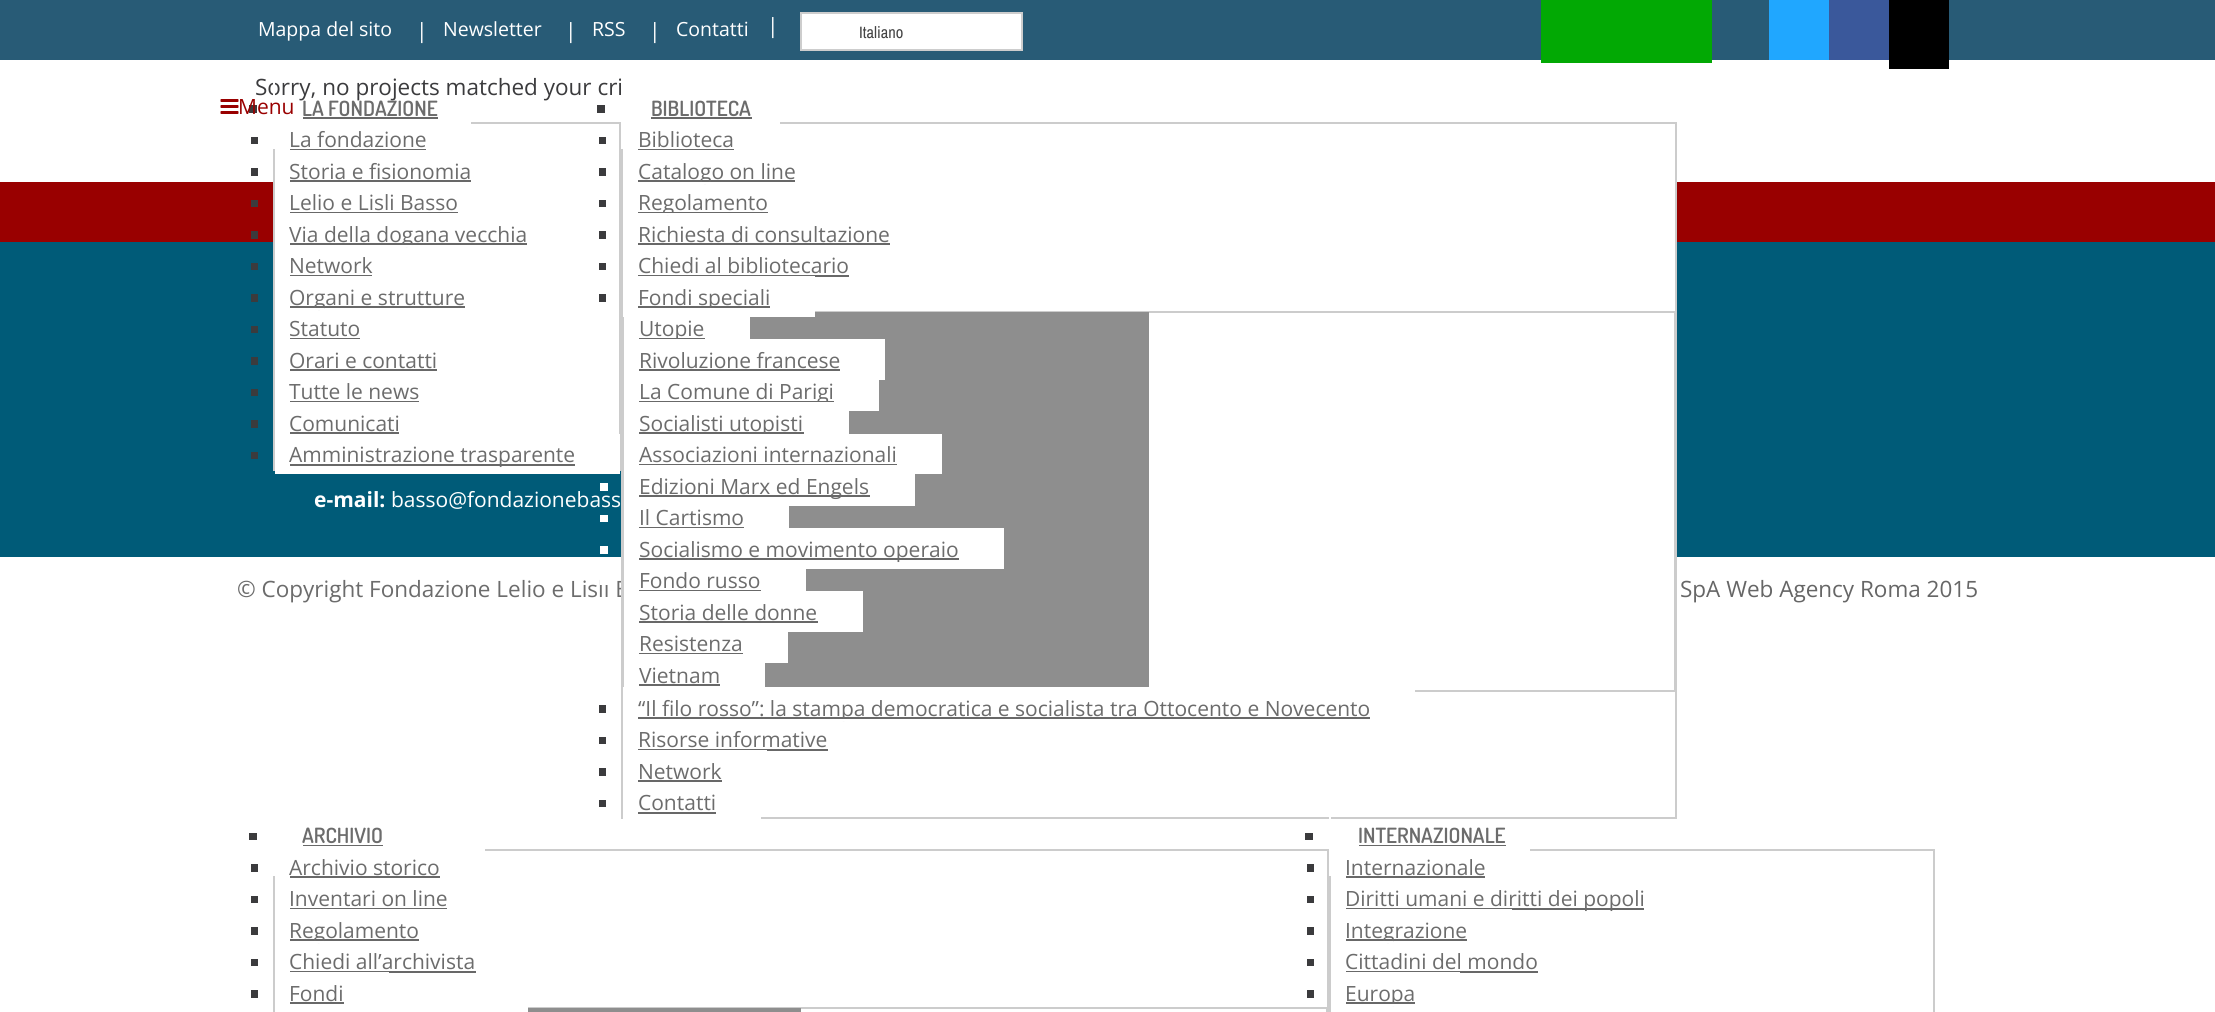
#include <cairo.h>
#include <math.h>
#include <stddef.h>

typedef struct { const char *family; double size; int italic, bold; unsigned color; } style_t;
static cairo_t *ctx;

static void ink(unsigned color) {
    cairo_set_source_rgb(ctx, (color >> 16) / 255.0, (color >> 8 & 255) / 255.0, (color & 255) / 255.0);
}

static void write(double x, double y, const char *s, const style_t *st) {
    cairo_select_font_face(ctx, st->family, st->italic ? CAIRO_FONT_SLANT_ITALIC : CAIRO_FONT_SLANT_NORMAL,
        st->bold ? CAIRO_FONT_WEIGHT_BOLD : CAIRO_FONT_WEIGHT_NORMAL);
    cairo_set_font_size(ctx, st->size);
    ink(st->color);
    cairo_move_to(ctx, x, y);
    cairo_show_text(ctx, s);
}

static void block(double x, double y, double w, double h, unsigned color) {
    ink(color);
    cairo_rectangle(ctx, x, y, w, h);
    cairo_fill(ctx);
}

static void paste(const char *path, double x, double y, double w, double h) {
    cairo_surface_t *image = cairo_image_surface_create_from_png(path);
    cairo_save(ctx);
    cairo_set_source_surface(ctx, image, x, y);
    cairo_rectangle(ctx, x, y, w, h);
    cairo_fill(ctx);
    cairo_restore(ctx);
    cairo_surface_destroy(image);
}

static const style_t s1 = {"Open Sans", 19.5, 0, 0, 0xffffff};
static const style_t s2 = {"Open Sans", 21, 0, 0, 0xffffff};
static const style_t s3 = {"Archivo Narrow", 16.5, 0, 0, 0x444444};
static const style_t s4 = {"Open Sans", 22.5, 0, 0, 0x3b3b3d};
static const style_t s5 = {"Open Sans", 21, 0, 0, 0x990000};
static const style_t s6 = {"Dosis SemiBold", 21, 0, 0, 0x6c6c6c};
static const style_t s7 = {"Open Sans", 21, 0, 0, 0x6c6c6c};
static const style_t s8 = {"Open Sans", 22.5, 0, 0, 0x6c6c6c};
static const style_t s9 = {"Open Sans", 21, 0, 1, 0xffffff};
static const style_t s10 = {"Open Sans", 22.5, 0, 0, 0x666666};

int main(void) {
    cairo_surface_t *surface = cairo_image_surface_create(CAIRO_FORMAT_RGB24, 2215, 1012);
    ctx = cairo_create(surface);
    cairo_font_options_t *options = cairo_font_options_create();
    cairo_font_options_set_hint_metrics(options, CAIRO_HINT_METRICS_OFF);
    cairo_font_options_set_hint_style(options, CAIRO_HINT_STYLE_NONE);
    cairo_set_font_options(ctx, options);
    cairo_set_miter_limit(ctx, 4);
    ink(0xffffff);
    cairo_paint(ctx);
    block(0, 0, 2215, 60, 0x285b76);
    write(258, 36, "Mappa del sito", &s1);
    write(416, 38, "|", &s2);
    write(443, 36, "Newsletter", &s1);
    write(565, 38, "|", &s2);
    write(592, 36, "RSS", &s1);
    write(649, 38, "|", &s2);
    write(676, 36, "Contatti", &s1);
    write(767, 33, "|", &s2);
    cairo_rectangle(ctx, 801, 13, 221, 37);
    cairo_fill_preserve(ctx);
    ink(0xcdcdcd);
    cairo_stroke(ctx);
    write(859, 38, "Italiano", &s3);
    block(1541, 0, 171, 63, 0x02a904);
    block(1769, 0, 60, 60, 0x20a7ff);
    block(1829, 0, 60, 60, 0x3a589b);
    block(1889, 0, 60, 69, 0x000000);
    write(255, 95, "Sorry, no projects matched your cri", &s4);
    paste("pic1.png", 220, 99, 19, 15);
    block(249, 105, 8, 8, 0x3b3b3d);
    block(0, 182, 2215, 60, 0x990000);
    block(0, 242, 2215, 315, 0x005b78);
    block(275, 182, 344, 252, 0xffffff);
    cairo_rectangle(ctx, 274, 123, 346, 347);
    ink(0xcccccc);
    cairo_stroke(ctx);
    block(273, 82, 2, 67, 0xffffff);
    write(238, 114, "Menu", &s5);
    write(302, 116, "LA FONDAZIONE", &s6);
    block(303, 117, 135, 2, 0x686868);
    block(251, 137, 7, 7, 0x3b3b3d);
    write(289, 147, "La fondazione", &s7);
    block(275, 122, 196, 2, 0xffffff);
    block(290, 149, 136, 1, 0x686868);
    block(251, 168, 7, 8, 0x3b3b3d);
    write(289, 179, "Storia e fisionomia", &s7);
    block(290, 180, 181, 2, 0x686868);
    block(251, 200, 7, 7, 0x3b3b3d);
    write(289, 210, "Lelio e Lisli Basso", &s7);
    block(290, 212, 168, 1, 0x686868);
    block(251, 231, 7, 8, 0x3b3b3d);
    block(290, 243, 237, 2, 0x686868);
    write(289, 242, "Via della dogana vecchia", &s7);
    block(251, 263, 7, 7, 0x3b3b3d);
    write(289, 273, "Network", &s7);
    block(402, 245, 10, 2, 0xffffff);
    block(290, 275, 82, 1, 0x686868);
    block(251, 294, 7, 8, 0x3b3b3d);
    block(290, 306, 175, 2, 0x686868);
    write(289, 305, "Organi e strutture", &s7);
    block(251, 326, 7, 7, 0x3b3b3d);
    write(289, 336, "Statuto", &s7);
    block(314, 308, 10, 2, 0xffffff);
    block(290, 338, 70, 1, 0x686868);
    block(251, 357, 7, 8, 0x3b3b3d);
    write(289, 368, "Orari e contatti", &s7);
    block(290, 369, 147, 2, 0x686868);
    block(251, 389, 7, 7, 0x3b3b3d);
    write(289, 399, "Tutte le news", &s7);
    block(290, 401, 129, 1, 0x686868);
    block(251, 420, 7, 8, 0x3b3b3d);
    write(289, 431, "Comunicati", &s7);
    block(290, 432, 109, 2, 0x686868);
    block(251, 452, 7, 7, 0x3b3b3d);
    block(275, 434, 345, 40, 0xffffff);
    block(290, 464, 285, 2, 0x686868);
    write(289, 462, "Amministrazione trasparente", &s7);
    block(597, 105, 8, 8, 0x3b3b3d);
    write(237, 597, "© Copyright Fondazione Lelio e Lisli B", &s8);
    block(623, 182, 1052, 415, 0xffffff);
    cairo_rectangle(ctx, 622, 123, 1054, 695);
    ink(0xcccccc);
    cairo_stroke(ctx);
    block(621, 78, 159, 71, 0xffffff);
    write(651, 116, "BIBLIOTECA", &s6);
    block(651, 117, 101, 2, 0x686868);
    block(599, 137, 7, 7, 0x3b3b3d);
    write(638, 147, "Biblioteca", &s7);
    block(638, 149, 96, 1, 0x686868);
    block(599, 168, 7, 8, 0x3b3b3d);
    block(638, 180, 157, 2, 0x686868);
    write(638, 179, "Catalogo on line", &s7);
    block(599, 200, 7, 7, 0x3b3b3d);
    block(638, 212, 130, 1, 0x686868);
    write(638, 210, "Regolamento", &s7);
    block(700, 182, 11, 2, 0xffffff);
    block(599, 231, 7, 8, 0x3b3b3d);
    write(638, 242, "Richiesta di consultazione", &s7);
    block(663, 213, 10, 2, 0xffffff);
    block(638, 243, 252, 2, 0x686868);
    block(599, 263, 7, 7, 0x3b3b3d);
    write(638, 273, "Chiedi al bibliotecario", &s7);
    block(638, 275, 211, 2, 0x686868);
    block(599, 294, 7, 8, 0x3b3b3d);
    cairo_rectangle(ctx, 624, 312, 1051, 379);
    ink(0xcccccc);
    cairo_stroke(ctx);
    block(750, 312, 399, 32, 0x8e8e8e);
    block(623, 276, 192, 41, 0xffffff);
    block(638, 306, 132, 2, 0x686868);
    write(638, 305, "Fondi speciali", &s7);
    block(624, 308, 88, 31, 0xffffff);
    block(639, 338, 66, 1, 0x686868);
    write(639, 336, "Utopie", &s7);
    block(885, 344, 264, 31, 0x8e8e8e);
    block(879, 375, 270, 32, 0x8e8e8e);
    block(624, 339, 261, 41, 0xffffff);
    write(639, 368, "Rivoluzione francese", &s7);
    block(639, 369, 201, 2, 0x686868);
    block(849, 407, 300, 31, 0x8e8e8e);
    block(624, 380, 255, 31, 0xffffff);
    block(639, 401, 195, 1, 0x686868);
    write(639, 399, "La Comune di Parigi", &s7);
    block(624, 402, 204, 32, 0xffffff);
    block(639, 432, 165, 2, 0x686868);
    write(639, 431, "Socialisti utopisti", &s7);
    block(942, 438, 207, 32, 0x8e8e8e);
    block(915, 470, 234, 31, 0x8e8e8e);
    block(624, 434, 318, 40, 0xffffff);
    write(639, 462, "Associazioni internazionali", &s7);
    block(639, 464, 258, 1, 0x686868);
    block(600, 483, 8, 8, 0xffffff);
    block(789, 501, 360, 32, 0x8e8e8e);
    block(624, 474, 291, 32, 0xffffff);
    block(639, 495, 231, 2, 0x686868);
    write(639, 494, "Edizioni Marx ed Engels", &s7);
    block(600, 515, 8, 7, 0xffffff);
    write(639, 525, "Il Cartismo", &s7);
    block(624, 506, 1, 22, 0xffffff);
    block(639, 527, 105, 1, 0x686868);
    block(1004, 533, 145, 31, 0x8e8e8e);
    block(600, 546, 8, 8, 0xffffff);
    block(806, 564, 343, 32, 0x8e8e8e);
    block(624, 528, 380, 41, 0xffffff);
    block(639, 558, 320, 2, 0x686868);
    write(639, 557, "Socialismo e movimento operaio", &s7);
    block(600, 579, 8, 6, 0xffffff);
    write(639, 588, "Fondo russo", &s7);
    block(624, 569, 1, 22, 0xffffff);
    block(639, 590, 122, 1, 0x686868);
    block(863, 596, 286, 31, 0x8e8e8e);
    block(788, 627, 361, 32, 0x8e8e8e);
    block(624, 591, 239, 41, 0xffffff);
    write(639, 620, "Storia delle donne", &s7);
    block(639, 621, 179, 2, 0x686868);
    block(765, 659, 384, 28, 0x8e8e8e);
    block(624, 632, 164, 31, 0xffffff);
    write(639, 651, "Resistenza", &s7);
    block(639, 653, 104, 1, 0x686868);
    write(639, 683, "Vietnam", &s7);
    block(624, 663, 1, 24, 0xffffff);
    block(639, 684, 81, 2, 0x686868);
    block(599, 705, 7, 8, 0x3b3b3d);
    block(638, 717, 732, 2, 0x686868);
    write(638, 716, "“Il filo rosso”: la stampa democratica e socialista tra Ottocento e Novecento", &s7);
    block(623, 687, 792, 5, 0xffffff);
    block(599, 737, 7, 7, 0x3b3b3d);
    write(638, 747, "Risorse informative", &s7);
    block(842, 719, 3, 2, 0xffffff);
    block(638, 749, 190, 2, 0x686868);
    block(599, 768, 7, 8, 0x3b3b3d);
    write(638, 779, "Network", &s7);
    block(638, 750, 129, 1, 0xffffff);
    block(638, 780, 84, 2, 0x686868);
    block(599, 800, 7, 7, 0x3b3b3d);
    write(638, 810, "Contatti", &s7);
    block(623, 817, 138, 2, 0xffffff);
    block(638, 812, 78, 2, 0x686868);
    block(249, 833, 8, 7, 0x3b3b3d);
    write(302, 843, "ARCHIVIO", &s6);
    cairo_rectangle(ctx, 274, 850, 1054, 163);
    ink(0xcccccc);
    cairo_stroke(ctx);
    block(273, 849, 2, 27, 0xffffff);
    block(303, 845, 80, 1, 0x686868);
    block(251, 864, 7, 8, 0x3b3b3d);
    write(289, 875, "Archivio storico", &s7);
    block(275, 849, 210, 2, 0xffffff);
    block(290, 876, 150, 2, 0x686868);
    block(251, 896, 7, 7, 0x3b3b3d);
    write(289, 906, "Inventari on line", &s7);
    block(290, 908, 157, 1, 0x686868);
    block(251, 927, 7, 8, 0x3b3b3d);
    block(290, 939, 129, 2, 0x686868);
    write(289, 938, "Regolamento", &s7);
    block(251, 959, 7, 7, 0x3b3b3d);
    write(289, 969, "Chiedi all’archivista", &s7);
    block(314, 941, 10, 2, 0xffffff);
    block(290, 971, 186, 2, 0x686868);
    block(251, 990, 7, 8, 0x3b3b3d);
    cairo_rectangle(ctx, 276, 1008, 1051, 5);
    ink(0xcccccc);
    cairo_stroke(ctx);
    block(275, 972, 114, 40, 0xffffff);
    write(289, 1001, "Fondi", &s7);
    block(290, 1002, 54, 2, 0x686868);
    block(528, 1008, 273, 4, 0x8e8e8e);
    block(389, 1007, 139, 2, 0xffffff);
    block(1305, 833, 8, 7, 0x3b3b3d);
    write(1358, 843, "INTERNAZIONALE", &s6);
    cairo_rectangle(ctx, 1330, 850, 604, 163);
    ink(0xcccccc);
    cairo_stroke(ctx);
    block(1329, 817, 2, 59, 0xffffff);
    block(1359, 845, 147, 1, 0x686868);
    block(1307, 864, 7, 8, 0x3b3b3d);
    write(1345, 875, "Internazionale", &s7);
    block(1331, 849, 199, 2, 0xffffff);
    block(1346, 876, 139, 2, 0x686868);
    block(1307, 896, 7, 7, 0x3b3b3d);
    block(1346, 908, 298, 2, 0x686868);
    write(1345, 906, "Diritti umani e diritti dei popoli", &s7);
    block(1307, 927, 7, 8, 0x3b3b3d);
    block(1346, 939, 121, 2, 0x686868);
    write(1345, 938, "Integrazione", &s7);
    block(1346, 909, 166, 1, 0xffffff);
    block(1307, 959, 7, 7, 0x3b3b3d);
    write(1345, 969, "Cittadini del mondo", &s7);
    block(1383, 941, 10, 2, 0xffffff);
    block(1346, 971, 192, 2, 0x686868);
    block(1307, 990, 7, 8, 0x3b3b3d);
    block(1346, 1002, 69, 2, 0x686868);
    write(1345, 1001, "Europa", &s7);
    block(1346, 972, 114, 1, 0xffffff);
    block(1392, 1004, 3, 2, 0xffffff);
    write(314, 507, "e-mail:", &s9);
    write(391, 507, "basso@fondazionebass", &s2);
    write(1680, 597, "SpA Web Agency Roma 2015", &s10);
    cairo_surface_write_to_png(surface, "screenshot.png");
    cairo_font_options_destroy(options);
    cairo_destroy(ctx);
    cairo_surface_destroy(surface);
    return 0;
}
